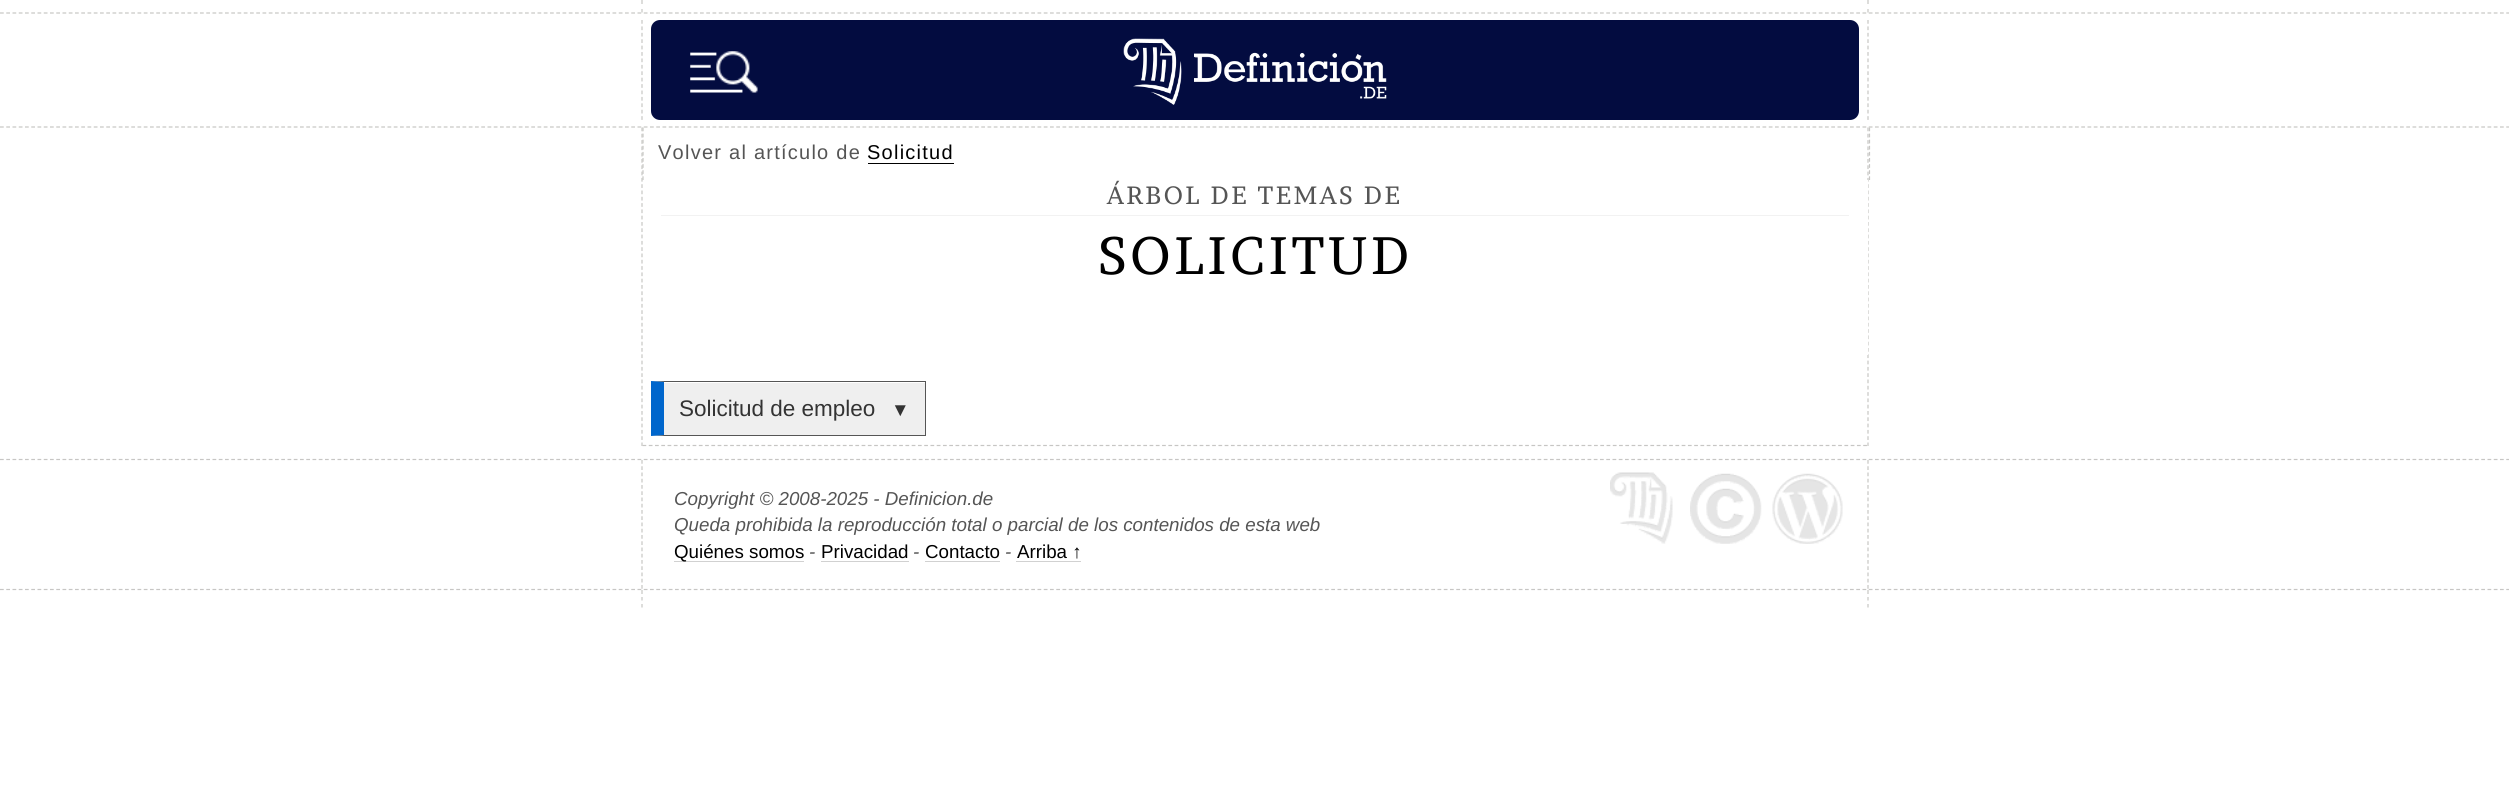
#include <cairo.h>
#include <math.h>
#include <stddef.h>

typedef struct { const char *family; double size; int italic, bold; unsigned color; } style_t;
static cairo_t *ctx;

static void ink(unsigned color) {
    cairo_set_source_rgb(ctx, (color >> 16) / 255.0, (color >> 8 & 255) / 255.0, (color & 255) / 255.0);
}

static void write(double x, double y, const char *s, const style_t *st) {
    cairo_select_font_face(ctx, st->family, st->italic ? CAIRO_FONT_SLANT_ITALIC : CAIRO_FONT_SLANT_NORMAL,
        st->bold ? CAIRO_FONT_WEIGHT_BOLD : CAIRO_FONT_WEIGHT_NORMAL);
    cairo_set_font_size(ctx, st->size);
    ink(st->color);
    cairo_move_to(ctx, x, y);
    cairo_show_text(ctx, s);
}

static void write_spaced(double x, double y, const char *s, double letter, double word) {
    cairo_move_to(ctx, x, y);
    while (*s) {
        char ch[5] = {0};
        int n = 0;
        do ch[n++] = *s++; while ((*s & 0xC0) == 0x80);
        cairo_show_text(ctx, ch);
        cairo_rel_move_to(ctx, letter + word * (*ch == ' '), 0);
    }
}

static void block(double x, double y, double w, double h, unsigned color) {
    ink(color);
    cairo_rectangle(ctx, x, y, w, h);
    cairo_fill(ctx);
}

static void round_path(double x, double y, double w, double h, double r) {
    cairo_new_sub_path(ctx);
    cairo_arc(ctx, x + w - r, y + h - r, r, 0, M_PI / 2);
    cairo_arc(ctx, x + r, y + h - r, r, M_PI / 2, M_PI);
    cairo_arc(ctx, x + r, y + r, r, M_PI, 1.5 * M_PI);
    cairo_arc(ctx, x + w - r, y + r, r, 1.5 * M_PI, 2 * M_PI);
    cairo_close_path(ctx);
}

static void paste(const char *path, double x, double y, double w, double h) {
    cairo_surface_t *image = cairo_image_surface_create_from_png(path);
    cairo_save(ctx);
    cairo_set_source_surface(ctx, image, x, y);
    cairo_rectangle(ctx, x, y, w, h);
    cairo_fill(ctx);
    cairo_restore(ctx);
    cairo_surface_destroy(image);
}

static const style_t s1 = {"Liberation Sans", 22.5, 0, 0, 0x333333};
static const style_t s2 = {"Liberation Sans", 18.75, 0, 0, 0x333333};
static const style_t s3 = {"Liberation Sans", 18.75, 1, 0, 0x555555};
static const style_t s4 = {"Liberation Sans", 18.75, 0, 0, 0x000000};

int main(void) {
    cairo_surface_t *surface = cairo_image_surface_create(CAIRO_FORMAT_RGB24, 2509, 805);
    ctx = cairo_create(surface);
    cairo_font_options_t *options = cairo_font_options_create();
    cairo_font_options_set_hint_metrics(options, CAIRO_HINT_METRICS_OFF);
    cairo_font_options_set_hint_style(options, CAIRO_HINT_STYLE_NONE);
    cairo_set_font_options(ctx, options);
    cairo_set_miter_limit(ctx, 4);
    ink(0xffffff);
    cairo_paint(ctx);
    cairo_new_path(ctx);
    cairo_move_to(ctx, 0, 13);
    cairo_line_to(ctx, 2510, 13);
    ink(0xc7c6c4);
    cairo_set_line_width(ctx, 1.2);
    cairo_set_dash(ctx, (double[]){3.75, 2.5}, 2, 0);
    cairo_stroke(ctx);
    cairo_new_path(ctx);
    cairo_move_to(ctx, 1868, 0);
    cairo_line_to(ctx, 1868, 4);
    cairo_move_to(ctx, 1868, 9);
    cairo_line_to(ctx, 1868, 12.5);
    cairo_set_dash(ctx, NULL, 0, 0);
    cairo_stroke(ctx);
    cairo_new_path(ctx);
    cairo_move_to(ctx, 642, 0);
    cairo_line_to(ctx, 642, 4);
    cairo_move_to(ctx, 642, 9);
    cairo_line_to(ctx, 642, 12.5);
    cairo_stroke(ctx);
    cairo_new_path(ctx);
    cairo_move_to(ctx, 1868, 127.5);
    cairo_line_to(ctx, 1868, 446);
    cairo_set_dash(ctx, (double[]){3.75, 2.55}, 2, 0);
    cairo_stroke(ctx);
    cairo_new_path(ctx);
    cairo_move_to(ctx, 642, 127.5);
    cairo_line_to(ctx, 642, 446);
    cairo_stroke(ctx);
    cairo_new_path(ctx);
    cairo_move_to(ctx, 1869.5, 127.5);
    cairo_line_to(ctx, 1869.5, 180);
    cairo_set_dash(ctx, (double[]){3.75, 2.35}, 2, 0);
    cairo_stroke(ctx);
    cairo_new_path(ctx);
    cairo_move_to(ctx, 643, 127.5);
    cairo_line_to(ctx, 643, 180);
    cairo_stroke(ctx);
    cairo_new_path(ctx);
    cairo_move_to(ctx, 0, 127);
    cairo_line_to(ctx, 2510, 127);
    cairo_set_dash(ctx, (double[]){3.75, 2.5}, 2, 0);
    cairo_stroke(ctx);
    cairo_new_path(ctx);
    cairo_move_to(ctx, 1868, 20);
    cairo_line_to(ctx, 1868, 120);
    cairo_set_dash(ctx, (double[]){3.75, 2.66}, 2, 0);
    cairo_stroke(ctx);
    cairo_new_path(ctx);
    cairo_move_to(ctx, 642, 20);
    cairo_line_to(ctx, 642, 120);
    cairo_stroke(ctx);
    ink(0x030c40);
    round_path(651, 20, 1208, 100, 9);
    cairo_fill(ctx);
    paste("pic1.png", 690, 51, 68, 42);
    paste("pic2.png", 1123, 38, 264, 67);
    cairo_new_path(ctx);
    cairo_move_to(ctx, 0, 459.5);
    cairo_line_to(ctx, 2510, 459.5);
    ink(0xc7c6c4);
    cairo_set_dash(ctx, (double[]){3.75, 2.5}, 2, 0);
    cairo_stroke(ctx);
    cairo_new_path(ctx);
    cairo_move_to(ctx, 642.5, 445.5);
    cairo_line_to(ctx, 1867.5, 445.5);
    cairo_set_dash(ctx, (double[]){3.75, 2.51}, 2, 0);
    cairo_stroke(ctx);
    cairo_select_font_face(ctx, "Liberation Sans", CAIRO_FONT_SLANT_NORMAL, CAIRO_FONT_WEIGHT_NORMAL);
    cairo_set_font_size(ctx, 20);
    ink(0x555555);
    write_spaced(658, 159, "Volver al artículo de", 1.25, 0);
    ink(0x000000);
    write_spaced(867, 159, "Solicitud", 1.25, 0);
    block(868, 163, 86, 1, 0x000000);
    block(1867, 180, 1, 175, 0xffffff);
    cairo_select_font_face(ctx, "Brawler", CAIRO_FONT_SLANT_NORMAL, CAIRO_FONT_WEIGHT_NORMAL);
    cairo_set_font_size(ctx, 25);
    ink(0x555555);
    write_spaced(1107, 204, "ÁRBOL DE TEMAS DE", 2.5, 0);
    ink(0xf2f2f2);
    cairo_new_path(ctx);
    cairo_move_to(ctx, 661, 215);
    cairo_line_to(ctx, 661, 285);
    cairo_line_to(ctx, 661, 216);
    cairo_line_to(ctx, 1849, 216);
    cairo_line_to(ctx, 1849, 285);
    cairo_line_to(ctx, 1849, 215);
    cairo_close_path(ctx);
    cairo_fill(ctx);
    cairo_set_font_size(ctx, 52.5);
    ink(0x000000);
    write_spaced(1098, 274, "SOLICITUD", 3.75, 0);
    block(664, 383, 261, 52, 0xefefef);
    ink(0x555555);
    cairo_new_path(ctx);
    cairo_move_to(ctx, 651, 381);
    cairo_line_to(ctx, 926, 381);
    cairo_line_to(ctx, 925, 382);
    cairo_line_to(ctx, 664, 382);
    cairo_close_path(ctx);
    cairo_fill(ctx);
    block(925, 381, 1, 55, 0x555555);
    cairo_new_path(ctx);
    cairo_move_to(ctx, 926, 436);
    cairo_line_to(ctx, 651, 436);
    cairo_line_to(ctx, 664, 435);
    cairo_line_to(ctx, 925, 435);
    cairo_close_path(ctx);
    cairo_fill(ctx);
    ink(0x0066cc);
    cairo_new_path(ctx);
    cairo_move_to(ctx, 651, 436);
    cairo_line_to(ctx, 651, 381);
    cairo_line_to(ctx, 664, 382);
    cairo_line_to(ctx, 664, 435);
    cairo_close_path(ctx);
    cairo_fill(ctx);
    write(679, 416, "Solicitud de empleo", &s1);
    write(891, 416, "▼", &s2);
    cairo_new_path(ctx);
    cairo_move_to(ctx, 0, 589.5);
    cairo_line_to(ctx, 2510, 589.5);
    ink(0xc7c6c4);
    cairo_set_dash(ctx, (double[]){3.75, 2.5}, 2, 0);
    cairo_stroke(ctx);
    cairo_new_path(ctx);
    cairo_move_to(ctx, 1868, 460);
    cairo_line_to(ctx, 1868, 589);
    cairo_stroke(ctx);
    cairo_new_path(ctx);
    cairo_move_to(ctx, 642, 460);
    cairo_line_to(ctx, 642, 589);
    cairo_stroke(ctx);
    write(674, 505, "Copyright © 2008-2025 - Definicion.de", &s3);
    write(674, 531, "Queda prohibida la reproducción total o parcial de los contenidos de esta web", &s3);
    block(674, 561, 130, 1, 0xd1d1d1);
    write(674, 558, "Quiénes somos", &s4);
    write(809, 558, "-", &s3);
    write(821, 558, "Privacidad", &s4);
    block(821, 561, 88, 1, 0xd1d1d1);
    write(913, 558, "-", &s3);
    write(925, 558, "Contacto", &s4);
    block(925, 561, 75, 1, 0xd1d1d1);
    write(1005, 558, "-", &s3);
    write(1017, 558, "Arriba ↑", &s4);
    block(1016, 561, 65, 1, 0xd1d1d1);
    paste("pic3.png", 1610, 472, 63, 72);
    paste("pic4.png", 1690, 473, 72, 71);
    paste("pic5.png", 1772, 473, 71, 71);
    cairo_new_path(ctx);
    cairo_move_to(ctx, 1868, 590);
    cairo_line_to(ctx, 1868, 594);
    cairo_move_to(ctx, 1868, 597);
    cairo_line_to(ctx, 1868, 600.5);
    cairo_move_to(ctx, 1868, 604);
    cairo_line_to(ctx, 1868, 607.5);
    ink(0xc7c6c4);
    cairo_set_dash(ctx, NULL, 0, 0);
    cairo_stroke(ctx);
    cairo_new_path(ctx);
    cairo_move_to(ctx, 642, 590);
    cairo_line_to(ctx, 642, 594);
    cairo_move_to(ctx, 642, 597);
    cairo_line_to(ctx, 642, 600.5);
    cairo_move_to(ctx, 642, 604);
    cairo_line_to(ctx, 642, 607.5);
    cairo_stroke(ctx);
    cairo_surface_write_to_png(surface, "screenshot.png");
    cairo_font_options_destroy(options);
    cairo_destroy(ctx);
    cairo_surface_destroy(surface);
    return 0;
}
